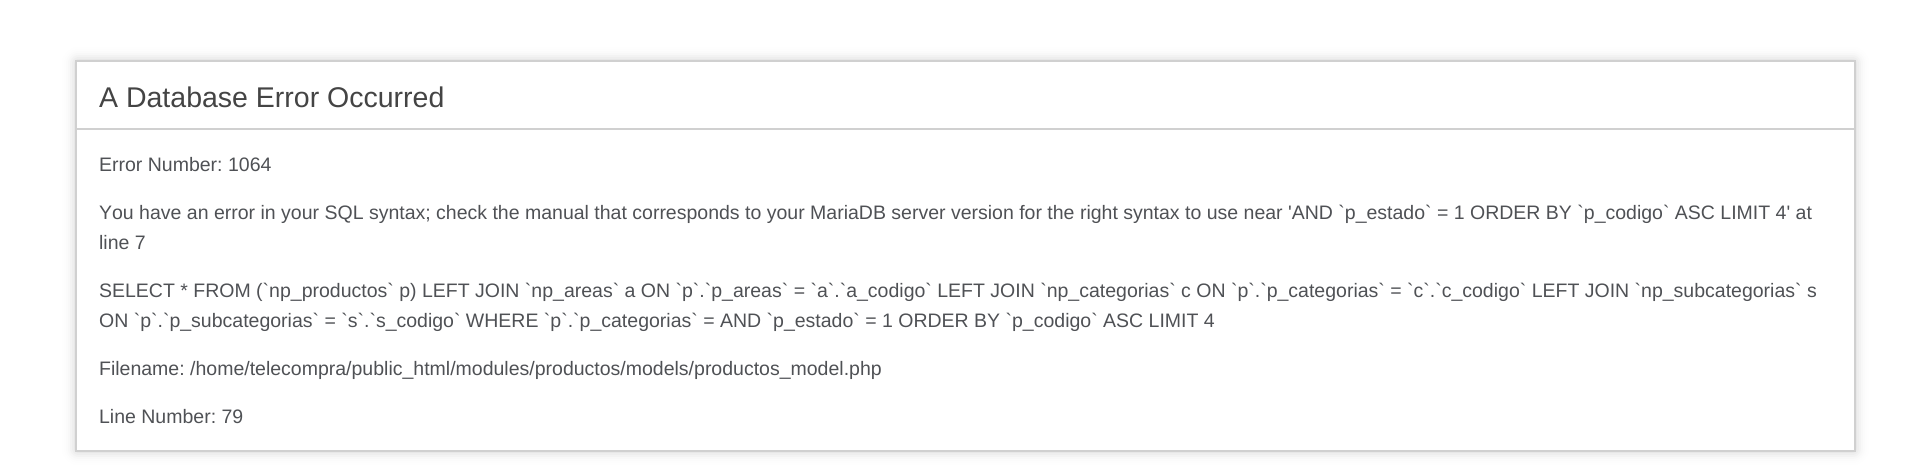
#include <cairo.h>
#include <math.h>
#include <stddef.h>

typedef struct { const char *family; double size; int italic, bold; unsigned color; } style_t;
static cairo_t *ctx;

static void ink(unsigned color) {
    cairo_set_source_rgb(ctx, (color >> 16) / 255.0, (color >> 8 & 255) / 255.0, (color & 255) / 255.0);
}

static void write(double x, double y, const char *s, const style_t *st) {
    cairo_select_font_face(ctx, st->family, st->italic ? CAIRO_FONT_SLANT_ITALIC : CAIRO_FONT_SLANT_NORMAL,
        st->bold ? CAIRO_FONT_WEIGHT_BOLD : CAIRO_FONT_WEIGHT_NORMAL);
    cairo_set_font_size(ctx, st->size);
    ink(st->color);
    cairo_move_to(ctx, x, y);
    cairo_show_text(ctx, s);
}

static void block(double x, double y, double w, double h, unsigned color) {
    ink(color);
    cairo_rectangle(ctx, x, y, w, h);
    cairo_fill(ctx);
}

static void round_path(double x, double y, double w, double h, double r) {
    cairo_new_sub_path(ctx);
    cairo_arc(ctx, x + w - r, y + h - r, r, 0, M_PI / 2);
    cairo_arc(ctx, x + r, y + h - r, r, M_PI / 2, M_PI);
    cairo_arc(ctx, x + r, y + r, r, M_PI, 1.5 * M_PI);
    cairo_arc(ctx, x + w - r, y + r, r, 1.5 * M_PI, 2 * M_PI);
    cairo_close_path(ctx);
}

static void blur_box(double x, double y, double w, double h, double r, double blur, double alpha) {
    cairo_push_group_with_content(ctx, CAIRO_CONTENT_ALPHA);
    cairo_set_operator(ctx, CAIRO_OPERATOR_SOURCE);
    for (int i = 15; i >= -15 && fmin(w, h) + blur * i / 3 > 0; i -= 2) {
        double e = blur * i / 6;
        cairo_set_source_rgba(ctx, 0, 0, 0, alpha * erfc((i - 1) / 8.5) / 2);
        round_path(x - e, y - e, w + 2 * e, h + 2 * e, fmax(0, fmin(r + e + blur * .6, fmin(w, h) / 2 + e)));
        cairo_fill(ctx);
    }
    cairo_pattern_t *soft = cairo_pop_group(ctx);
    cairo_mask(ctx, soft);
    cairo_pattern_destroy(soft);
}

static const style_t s1 = {"Liberation Sans", 28.5, 0, 0, 0x444444};
static const style_t s2 = {"Liberation Sans", 19.5, 0, 0, 0x4f5155};

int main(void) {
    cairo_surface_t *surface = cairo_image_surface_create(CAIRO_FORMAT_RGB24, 1930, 472);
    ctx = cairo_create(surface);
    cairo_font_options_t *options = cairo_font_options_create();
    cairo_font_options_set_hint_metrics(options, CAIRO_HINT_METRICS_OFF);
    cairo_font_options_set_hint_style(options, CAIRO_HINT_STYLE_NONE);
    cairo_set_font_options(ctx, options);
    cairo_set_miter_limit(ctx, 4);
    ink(0xffffff);
    cairo_paint(ctx);
    cairo_save(ctx);
    cairo_set_fill_rule(ctx, CAIRO_FILL_RULE_EVEN_ODD);
    cairo_new_path(ctx);
    cairo_move_to(ctx, 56, 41);
    cairo_line_to(ctx, 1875, 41);
    cairo_line_to(ctx, 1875, 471);
    cairo_line_to(ctx, 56, 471);
    cairo_close_path(ctx);
    cairo_move_to(ctx, 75, 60);
    cairo_line_to(ctx, 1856, 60);
    cairo_line_to(ctx, 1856, 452);
    cairo_line_to(ctx, 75, 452);
    cairo_close_path(ctx);
    cairo_clip(ctx);
    ink(0xd0d0d0);
    blur_box(75, 60, 1781, 392, 0, 6, 1);
    cairo_restore(ctx);
    cairo_rectangle(ctx, 76, 61, 1779, 390);
    ink(0xd0d0d0);
    cairo_stroke(ctx);
    block(77, 128, 1777, 2, 0xd0d0d0);
    write(99, 107, "A Database Error Occurred", &s1);
    write(99, 171, "Error Number: 1064", &s2);
    write(99, 219, "You have an error in your SQL syntax; check the manual that corresponds to your MariaDB server version for the right syntax to use near 'AND `p_estado` = 1 ORDER BY `p_codigo` ASC LIMIT 4' at", &s2);
    write(99, 249, "line 7", &s2);
    write(99, 297, "SELECT * FROM (`np_productos` p) LEFT JOIN `np_areas` a ON `p`.`p_areas` = `a`.`a_codigo` LEFT JOIN `np_categorias` c ON `p`.`p_categorias` = `c`.`c_codigo` LEFT JOIN `np_subcategorias` s", &s2);
    write(99, 327, "ON `p`.`p_subcategorias` = `s`.`s_codigo` WHERE `p`.`p_categorias` = AND `p_estado` = 1 ORDER BY `p_codigo` ASC LIMIT 4", &s2);
    write(99, 375, "Filename: /home/telecompra/public_html/modules/productos/models/productos_model.php", &s2);
    write(99, 423, "Line Number: 79", &s2);
    cairo_surface_write_to_png(surface, "screenshot.png");
    cairo_font_options_destroy(options);
    cairo_destroy(ctx);
    cairo_surface_destroy(surface);
    return 0;
}
